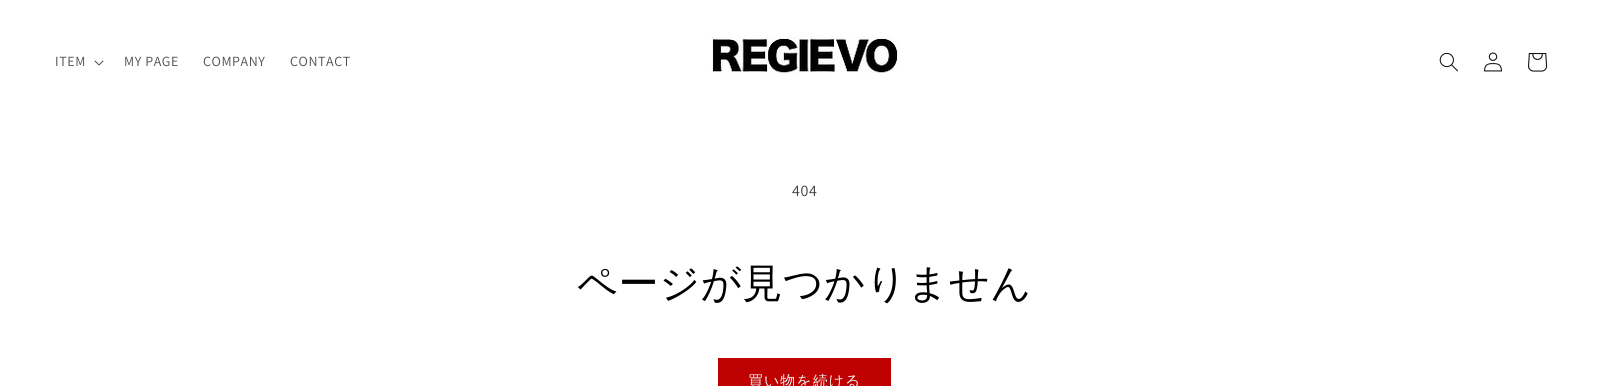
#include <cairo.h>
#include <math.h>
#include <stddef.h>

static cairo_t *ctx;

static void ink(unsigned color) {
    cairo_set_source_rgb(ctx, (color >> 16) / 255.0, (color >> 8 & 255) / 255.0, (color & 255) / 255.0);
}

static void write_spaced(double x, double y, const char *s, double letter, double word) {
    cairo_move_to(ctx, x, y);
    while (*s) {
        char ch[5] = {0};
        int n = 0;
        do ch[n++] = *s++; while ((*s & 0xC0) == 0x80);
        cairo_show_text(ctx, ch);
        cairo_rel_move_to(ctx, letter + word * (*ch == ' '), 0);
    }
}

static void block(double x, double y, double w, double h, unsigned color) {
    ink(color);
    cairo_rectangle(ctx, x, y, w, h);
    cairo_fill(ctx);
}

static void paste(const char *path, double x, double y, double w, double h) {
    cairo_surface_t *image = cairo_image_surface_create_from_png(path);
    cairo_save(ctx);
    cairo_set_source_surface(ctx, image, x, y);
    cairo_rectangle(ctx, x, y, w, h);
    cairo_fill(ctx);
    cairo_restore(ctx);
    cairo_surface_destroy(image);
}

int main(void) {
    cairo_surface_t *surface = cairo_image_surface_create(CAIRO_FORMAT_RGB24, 1609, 386);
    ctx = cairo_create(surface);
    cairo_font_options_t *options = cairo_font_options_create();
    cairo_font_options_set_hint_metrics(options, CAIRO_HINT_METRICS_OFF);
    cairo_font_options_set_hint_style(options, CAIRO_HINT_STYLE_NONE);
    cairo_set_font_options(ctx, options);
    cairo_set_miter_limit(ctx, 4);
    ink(0xffffff);
    cairo_paint(ctx);
    cairo_select_font_face(ctx, "Assistant", CAIRO_FONT_SLANT_NORMAL, CAIRO_FONT_WEIGHT_NORMAL);
    cairo_set_font_size(ctx, 14);
    ink(0x4d4d4d);
    write_spaced(55, 66, "ITEM", 0.6, 0);
    paste("pic1.png", 94, 60, 10, 6);
    write_spaced(124, 66, "MY PAGE", 0.6, 0);
    write_spaced(203, 66, "COMPANY", 0.6, 0);
    write_spaced(290, 66, "CONTACT", 0.6, 0);
    paste("pic2.png", 710, 36, 188, 38);
    paste("pic3.png", 1439, 52, 19, 20);
    paste("pic4.png", 1484, 52, 18, 20);
    paste("pic5.png", 1528, 53, 20, 19);
    cairo_set_font_size(ctx, 16);
    ink(0x404040);
    write_spaced(792, 196, "404", 0.6, 0);
    cairo_select_font_face(ctx, "WenQuanYi Zen Hei Medium", CAIRO_FONT_SLANT_NORMAL, CAIRO_FONT_WEIGHT_NORMAL);
    cairo_set_font_size(ctx, 40);
    ink(0x000000);
    write_spaced(577, 297, "ページが見つかりません", 0.6, 0);
    block(718, 358, 173, 28, 0xbe0000);
    cairo_set_font_size(ctx, 15);
    ink(0xeeeeee);
    write_spaced(748, 386, "買い物を続ける", 1, 0);
    cairo_surface_write_to_png(surface, "screenshot.png");
    cairo_font_options_destroy(options);
    cairo_destroy(ctx);
    cairo_surface_destroy(surface);
    return 0;
}
